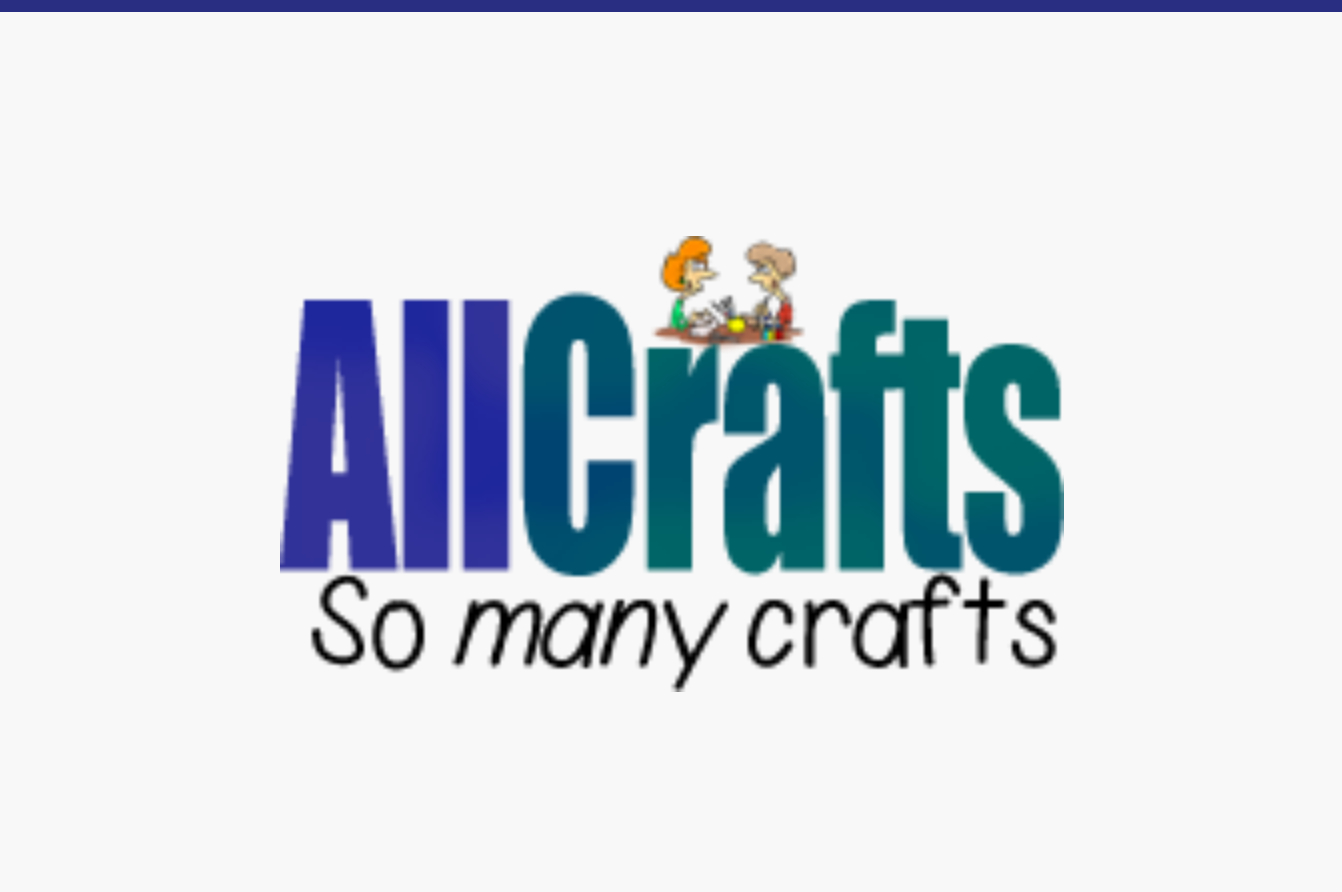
#include <cairo.h>
#include <math.h>
#include <stddef.h>

static cairo_t *ctx;

static void ink(unsigned color) {
    cairo_set_source_rgb(ctx, (color >> 16) / 255.0, (color >> 8 & 255) / 255.0, (color & 255) / 255.0);
}

static void block(double x, double y, double w, double h, unsigned color) {
    ink(color);
    cairo_rectangle(ctx, x, y, w, h);
    cairo_fill(ctx);
}

static void paste(const char *path, double x, double y, double w, double h) {
    cairo_surface_t *image = cairo_image_surface_create_from_png(path);
    cairo_save(ctx);
    cairo_set_source_surface(ctx, image, x, y);
    cairo_rectangle(ctx, x, y, w, h);
    cairo_fill(ctx);
    cairo_restore(ctx);
    cairo_surface_destroy(image);
}

int main(void) {
    cairo_surface_t *surface = cairo_image_surface_create(CAIRO_FORMAT_RGB24, 1342, 892);
    ctx = cairo_create(surface);
    cairo_font_options_t *options = cairo_font_options_create();
    cairo_font_options_set_hint_metrics(options, CAIRO_HINT_METRICS_OFF);
    cairo_font_options_set_hint_style(options, CAIRO_HINT_STYLE_NONE);
    cairo_set_font_options(ctx, options);
    cairo_set_miter_limit(ctx, 4);
    ink(0xf8f8f8);
    cairo_paint(ctx);
    block(0, 0, 1342, 12, 0x2a2e82);
    paste("pic1.png", 280, 236, 784, 456);
    cairo_surface_write_to_png(surface, "screenshot.png");
    cairo_font_options_destroy(options);
    cairo_destroy(ctx);
    cairo_surface_destroy(surface);
    return 0;
}
